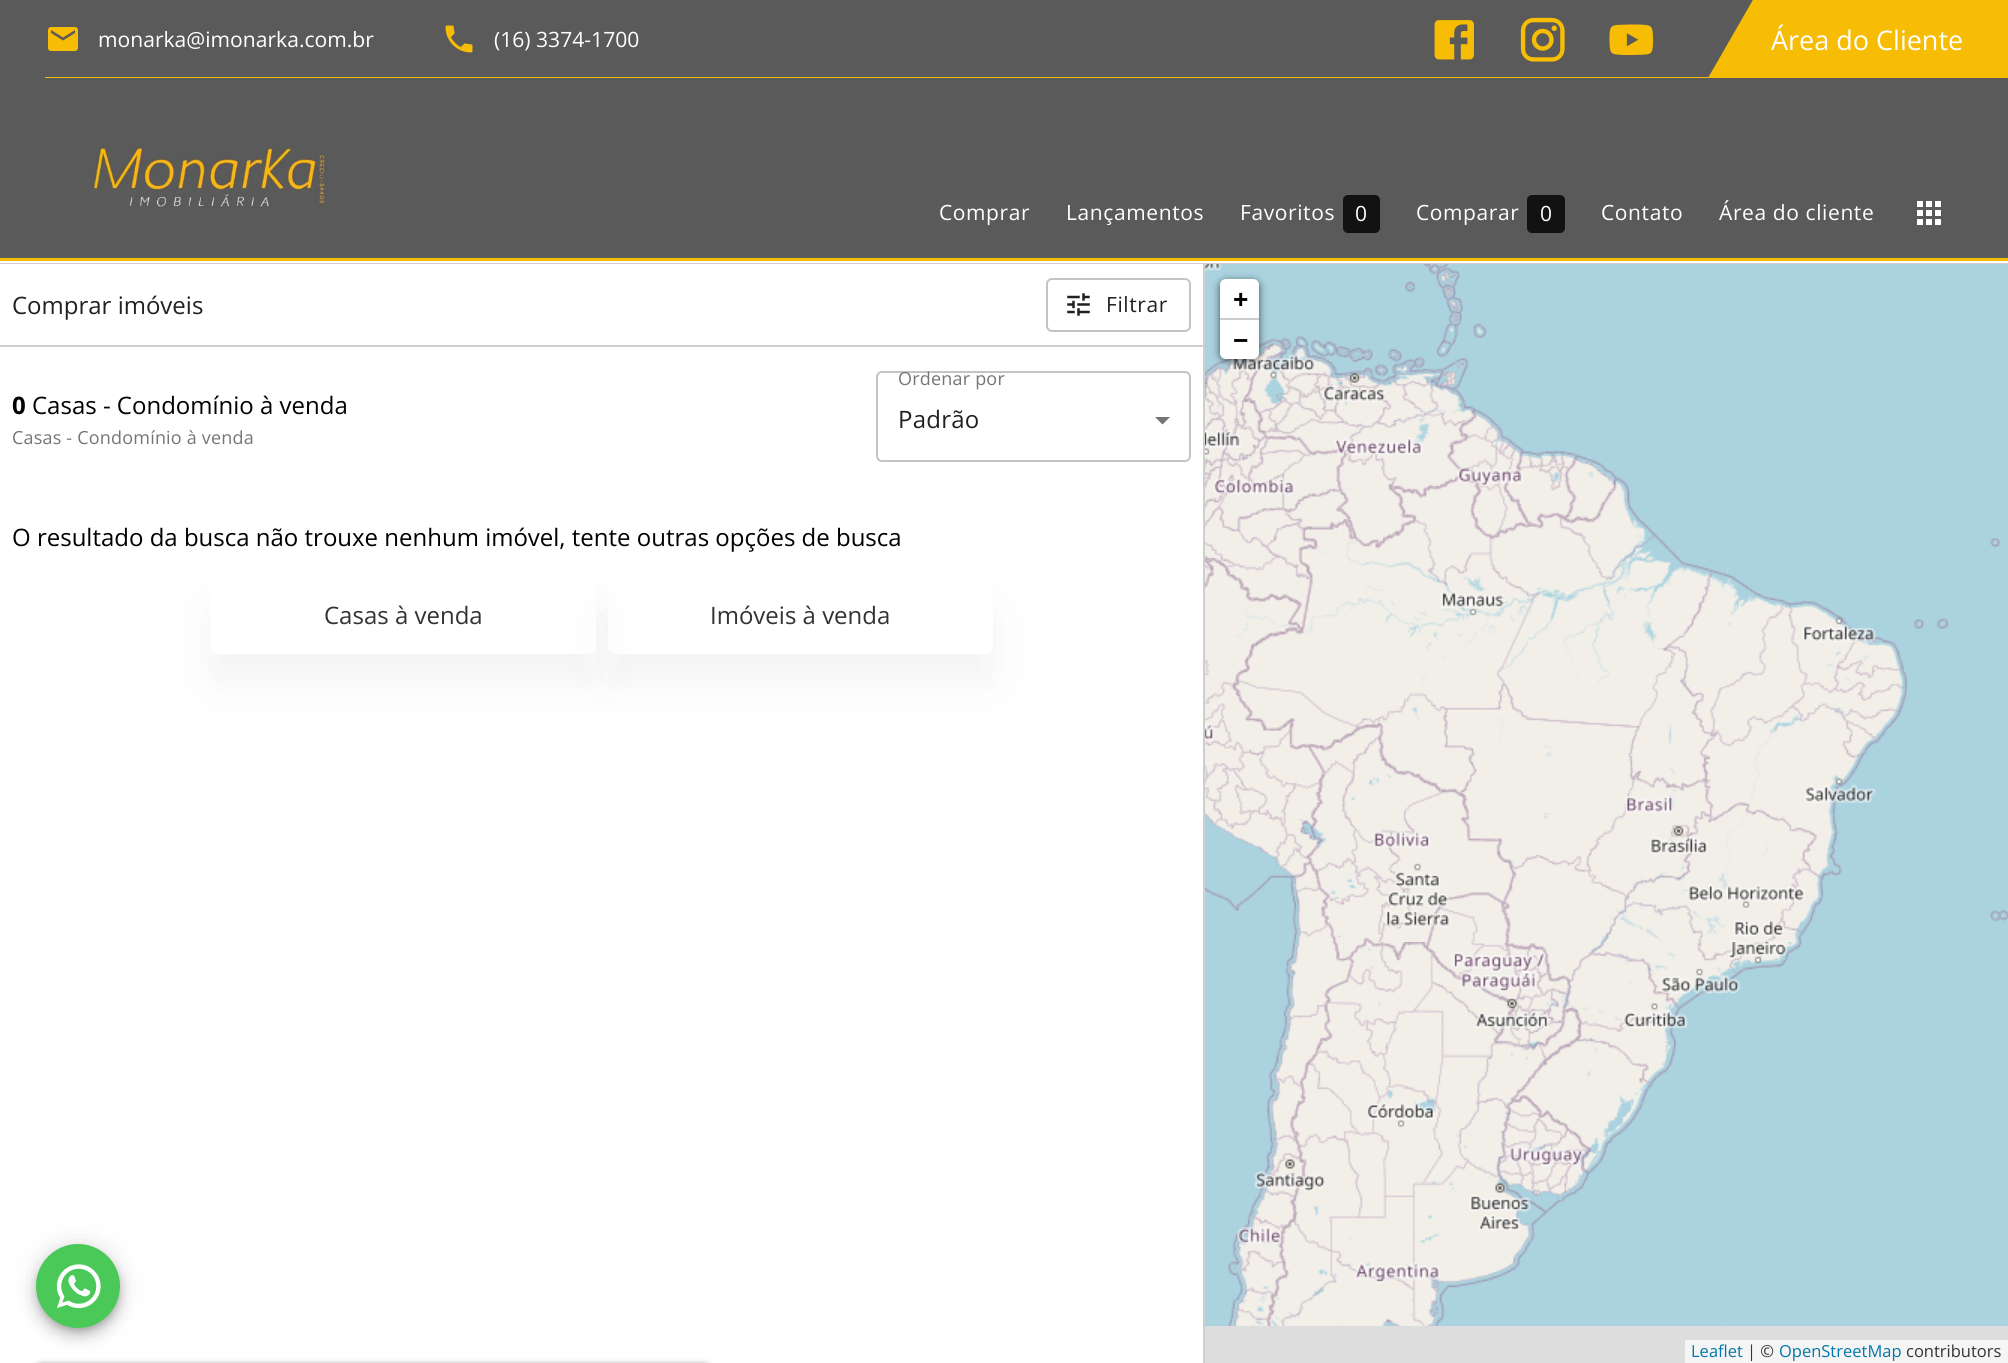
#include <cairo.h>
#include <math.h>
#include <stddef.h>

typedef struct { const char *family; double size; int italic, bold; unsigned color; } style_t;
static cairo_t *ctx;

static void ink(unsigned color) {
    cairo_set_source_rgb(ctx, (color >> 16) / 255.0, (color >> 8 & 255) / 255.0, (color & 255) / 255.0);
}

static void write(double x, double y, const char *s, const style_t *st) {
    cairo_select_font_face(ctx, st->family, st->italic ? CAIRO_FONT_SLANT_ITALIC : CAIRO_FONT_SLANT_NORMAL,
        st->bold ? CAIRO_FONT_WEIGHT_BOLD : CAIRO_FONT_WEIGHT_NORMAL);
    cairo_set_font_size(ctx, st->size);
    ink(st->color);
    cairo_move_to(ctx, x, y);
    cairo_show_text(ctx, s);
}

static void write_spaced(double x, double y, const char *s, double letter, double word) {
    cairo_move_to(ctx, x, y);
    while (*s) {
        char ch[5] = {0};
        int n = 0;
        do ch[n++] = *s++; while ((*s & 0xC0) == 0x80);
        cairo_show_text(ctx, ch);
        cairo_rel_move_to(ctx, letter + word * (*ch == ' '), 0);
    }
}

static void block(double x, double y, double w, double h, unsigned color) {
    ink(color);
    cairo_rectangle(ctx, x, y, w, h);
    cairo_fill(ctx);
}

static void round_path(double x, double y, double w, double h, double r) {
    cairo_new_sub_path(ctx);
    cairo_arc(ctx, x + w - r, y + h - r, r, 0, M_PI / 2);
    cairo_arc(ctx, x + r, y + h - r, r, M_PI / 2, M_PI);
    cairo_arc(ctx, x + r, y + r, r, M_PI, 1.5 * M_PI);
    cairo_arc(ctx, x + w - r, y + r, r, 1.5 * M_PI, 2 * M_PI);
    cairo_close_path(ctx);
}

static void blur_box(double x, double y, double w, double h, double r, double blur, double alpha) {
    cairo_push_group_with_content(ctx, CAIRO_CONTENT_ALPHA);
    cairo_set_operator(ctx, CAIRO_OPERATOR_SOURCE);
    for (int i = 15; i >= -15 && fmin(w, h) + blur * i / 3 > 0; i -= 2) {
        double e = blur * i / 6;
        cairo_set_source_rgba(ctx, 0, 0, 0, alpha * erfc((i - 1) / 8.5) / 2);
        round_path(x - e, y - e, w + 2 * e, h + 2 * e, fmax(0, fmin(r + e + blur * .6, fmin(w, h) / 2 + e)));
        cairo_fill(ctx);
    }
    cairo_pattern_t *soft = cairo_pop_group(ctx);
    cairo_mask(ctx, soft);
    cairo_pattern_destroy(soft);
}

static void paste(const char *path, double x, double y, double w, double h) {
    cairo_surface_t *image = cairo_image_surface_create_from_png(path);
    cairo_save(ctx);
    cairo_set_source_surface(ctx, image, x, y);
    cairo_rectangle(ctx, x, y, w, h);
    cairo_fill(ctx);
    cairo_restore(ctx);
    cairo_surface_destroy(image);
}

static const style_t s1 = {"Open Sans", 21.1, 0, 0, 0xffffff};
static const style_t s2 = {"Open Sans", 27, 0, 0, 0xffffff};
static const style_t s3 = {"Open Sans", 24, 0, 0, 0x212121};
static const style_t s4 = {"Open Sans", 24, 0, 1, 0x000000};
static const style_t s5 = {"Open Sans", 24, 0, 0, 0x000000};
static const style_t s6 = {"Open Sans", 24, 0, 0, 0x333333};
static const style_t s7 = {"Open Sans", 27, 0, 1, 0x000000};
static const style_t s8 = {"Open Sans", 16.5, 0, 0, 0x0078a8};
static const style_t s9 = {"Open Sans", 16.5, 0, 0, 0x333333};

int main(void) {
    cairo_surface_t *surface = cairo_image_surface_create(CAIRO_FORMAT_RGB24, 2008, 1363);
    ctx = cairo_create(surface);
    cairo_font_options_t *options = cairo_font_options_create();
    cairo_font_options_set_hint_metrics(options, CAIRO_HINT_METRICS_OFF);
    cairo_font_options_set_hint_style(options, CAIRO_HINT_STYLE_NONE);
    cairo_set_font_options(ctx, options);
    cairo_set_miter_limit(ctx, 4);
    ink(0xffffff);
    cairo_paint(ctx);
    block(0, 0, 2008, 258, 0x5a5a5a);
    block(0, 258, 2008, 3, 0xf7bc04);
    cairo_new_path(ctx);
    cairo_move_to(ctx, 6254, 78);
    cairo_line_to(ctx, 1708, 78);
    cairo_line_to(ctx, 1754, -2);
    cairo_line_to(ctx, 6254, -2);
    cairo_close_path(ctx);
    cairo_fill(ctx);
    block(45, 77, 1664, 1, 0xf7bc04);
    paste("pic1.png", 48, 27, 30, 24);
    write(98, 47, "monarka@imonarka.com.br", &s1);
    paste("pic2.png", 445, 25, 28, 28);
    write(494, 47, "(16) 3374-1700", &s1);
    paste("pic3.png", 1434, 20, 40, 40);
    paste("pic4.png", 1520, 17, 45, 45);
    paste("pic5.png", 1609, 24, 45, 32);
    write(1771, 50, "Área do Cliente", &s2);
    paste("pic6.png", 92, 146, 234, 61);
    cairo_set_font_size(ctx, 21);
    write_spaced(939, 220, "Comprar", 0.6, 0);
    write_spaced(1066, 220, "Lançamentos", 0.6, 0);
    write_spaced(1240, 220, "Favoritos", 0.6, 0);
    ink(0x121212);
    round_path(1343, 195, 37, 38, 5);
    cairo_fill(ctx);
    ink(0xffffff);
    write_spaced(1355, 221, "0", 0.6, 0);
    write_spaced(1416, 220, "Comparar", 0.6, 0);
    ink(0x121212);
    round_path(1527, 195, 38, 38, 5);
    cairo_fill(ctx);
    ink(0xffffff);
    write_spaced(1540, 221, "0", 0.6, 0);
    write_spaced(1601, 220, "Contato", 0.6, 0);
    write_spaced(1719, 220, "Área do cliente", 0.6, 0);
    paste("pic7.png", 1917, 201, 24, 24);
    block(0, 263, 2008, 1, 0xcecece);
    block(1203, 264, 2, 1099, 0xcecece);
    block(0, 345, 1203, 2, 0xcecece);
    write(12, 314, "Comprar imóveis", &s3);
    round_path(1047, 279, 143, 52, 5);
    ink(0xc4c4c4);
    cairo_stroke(ctx);
    paste("pic8.png", 1067, 293, 23, 23);
    cairo_set_font_size(ctx, 21);
    ink(0x212121);
    write_spaced(1106, 312, "Filtrar", 0.6, 0);
    write(12, 414, "0", &s4);
    write(32, 414, "Casas - Condomínio à venda", &s5);
    cairo_set_font_size(ctx, 18);
    ink(0x757575);
    write_spaced(12, 444, "Casas - Condomínio à venda", 0.2, 0);
    cairo_new_path(ctx);
    cairo_move_to(ctx, 1155, 417);
    cairo_line_to(ctx, 1162.5, 424.5);
    cairo_line_to(ctx, 1170, 417);
    cairo_close_path(ctx);
    cairo_fill(ctx);
    round_path(877, 372, 313, 89, 5);
    ink(0xc4c4c4);
    cairo_stroke(ctx);
    ink(0x757575);
    write_spaced(898, 385, "Ordenar por", 0.2, 0);
    cairo_set_font_size(ctx, 24);
    ink(0x212121);
    write_spaced(898, 428, "Padrão", 0.25, 0);
    write(12, 546, "O resultado da busca não trouxe nenhum imóvel, tente outras opções de busca", &s5);
    cairo_save(ctx);
    cairo_set_fill_rule(ctx, CAIRO_FILL_RULE_EVEN_ODD);
    cairo_new_path(ctx);
    cairo_move_to(ctx, 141, 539);
    cairo_line_to(ctx, 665, 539);
    cairo_line_to(ctx, 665, 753);
    cairo_line_to(ctx, 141, 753);
    cairo_close_path(ctx);
    cairo_move_to(ctx, 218, 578);
    cairo_line_to(ctx, 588, 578);
    cairo_curve_to(ctx, 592.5, 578, 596, 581.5, 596, 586);
    cairo_line_to(ctx, 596, 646);
    cairo_curve_to(ctx, 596, 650.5, 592.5, 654, 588, 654);
    cairo_line_to(ctx, 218, 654);
    cairo_curve_to(ctx, 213.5, 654, 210, 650.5, 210, 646);
    cairo_line_to(ctx, 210, 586);
    cairo_curve_to(ctx, 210, 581.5, 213.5, 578, 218, 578);
    cairo_close_path(ctx);
    cairo_clip(ctx);
    ink(0x333333);
    blur_box(210, 608, 386, 76, 8, 22.5, 0.06);
    cairo_restore(ctx);
    write(324, 624, "Casas à venda", &s6);
    cairo_save(ctx);
    cairo_set_fill_rule(ctx, CAIRO_FILL_RULE_EVEN_ODD);
    cairo_new_path(ctx);
    cairo_move_to(ctx, 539, 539);
    cairo_line_to(ctx, 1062, 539);
    cairo_line_to(ctx, 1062, 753);
    cairo_line_to(ctx, 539, 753);
    cairo_close_path(ctx);
    cairo_move_to(ctx, 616, 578);
    cairo_line_to(ctx, 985, 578);
    cairo_curve_to(ctx, 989.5, 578, 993, 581.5, 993, 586);
    cairo_line_to(ctx, 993, 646);
    cairo_curve_to(ctx, 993, 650.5, 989.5, 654, 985, 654);
    cairo_line_to(ctx, 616, 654);
    cairo_curve_to(ctx, 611.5, 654, 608, 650.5, 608, 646);
    cairo_line_to(ctx, 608, 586);
    cairo_curve_to(ctx, 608, 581.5, 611.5, 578, 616, 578);
    cairo_close_path(ctx);
    cairo_clip(ctx);
    ink(0x333333);
    blur_box(608, 608, 385, 76, 8, 22.5, 0.06);
    cairo_restore(ctx);
    write(710, 624, "Imóveis à venda", &s6);
    block(1205, 264, 803, 1099, 0xdddddd);
    paste("pic10.png", 1344, 264, 384, 294);
    paste("pic9.png", 1205, 264, 140, 294);
    paste("pic11.png", 1728, 264, 280, 294);
    paste("pic13.png", 1344, 558, 384, 384);
    paste("pic12.png", 1205, 558, 140, 384);
    paste("pic14.png", 1728, 558, 280, 384);
    paste("pic16.png", 1344, 942, 384, 384);
    paste("pic15.png", 1205, 942, 140, 384);
    paste("pic17.png", 1728, 942, 280, 384);
    ink(0x000000);
    blur_box(1220, 281, 39, 79, 6, 4, 0.65);
    ink(0xffffff);
    cairo_new_path(ctx);
    cairo_move_to(ctx, 1226, 279);
    cairo_line_to(ctx, 1253, 279);
    cairo_curve_to(ctx, 1256.5, 279, 1259, 281.5, 1259, 285);
    cairo_line_to(ctx, 1259, 320);
    cairo_line_to(ctx, 1220, 320);
    cairo_line_to(ctx, 1220, 285);
    cairo_curve_to(ctx, 1220, 281.5, 1222.5, 279, 1226, 279);
    cairo_close_path(ctx);
    cairo_fill(ctx);
    block(1220, 318, 39, 2, 0xcccccc);
    write(1233, 309, "+", &s7);
    ink(0xffffff);
    cairo_new_path(ctx);
    cairo_move_to(ctx, 1220, 320);
    cairo_line_to(ctx, 1259, 320);
    cairo_line_to(ctx, 1259, 353);
    cairo_curve_to(ctx, 1259, 356.5, 1256.5, 359, 1253, 359);
    cairo_line_to(ctx, 1226, 359);
    cairo_curve_to(ctx, 1222.5, 359, 1220, 356.5, 1220, 353);
    cairo_close_path(ctx);
    cairo_fill(ctx);
    write(1233, 350, "−", &s7);
    block(1685, 1340, 323, 23, 0xf5f5f5);
    write(1691, 1357, "Leaflet", &s8);
    write(1747, 1357, "| ©", &s9);
    write(1779, 1357, "OpenStreetMap", &s8);
    write(1906, 1357, "contributors", &s9);
    ink(0x000000);
    blur_box(36, 1245, 84, 84, 42, 13.5, 0.12);
    blur_box(36, 1253, 84, 84, 42, 7.5, 0.14);
    blur_box(38, 1250, 81, 81, 40.5, 4, 0.2);
    ink(0x4ac959);
    cairo_arc(ctx, 78, 1286, 42, 0, 2 * M_PI);
    cairo_fill(ctx);
    paste("pic18.png", 56, 1264, 45, 45);
    ink(0x000000);
    blur_box(35, 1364, 675, 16, 8, 3, 0.4);
    cairo_surface_write_to_png(surface, "screenshot.png");
    cairo_font_options_destroy(options);
    cairo_destroy(ctx);
    cairo_surface_destroy(surface);
    return 0;
}
